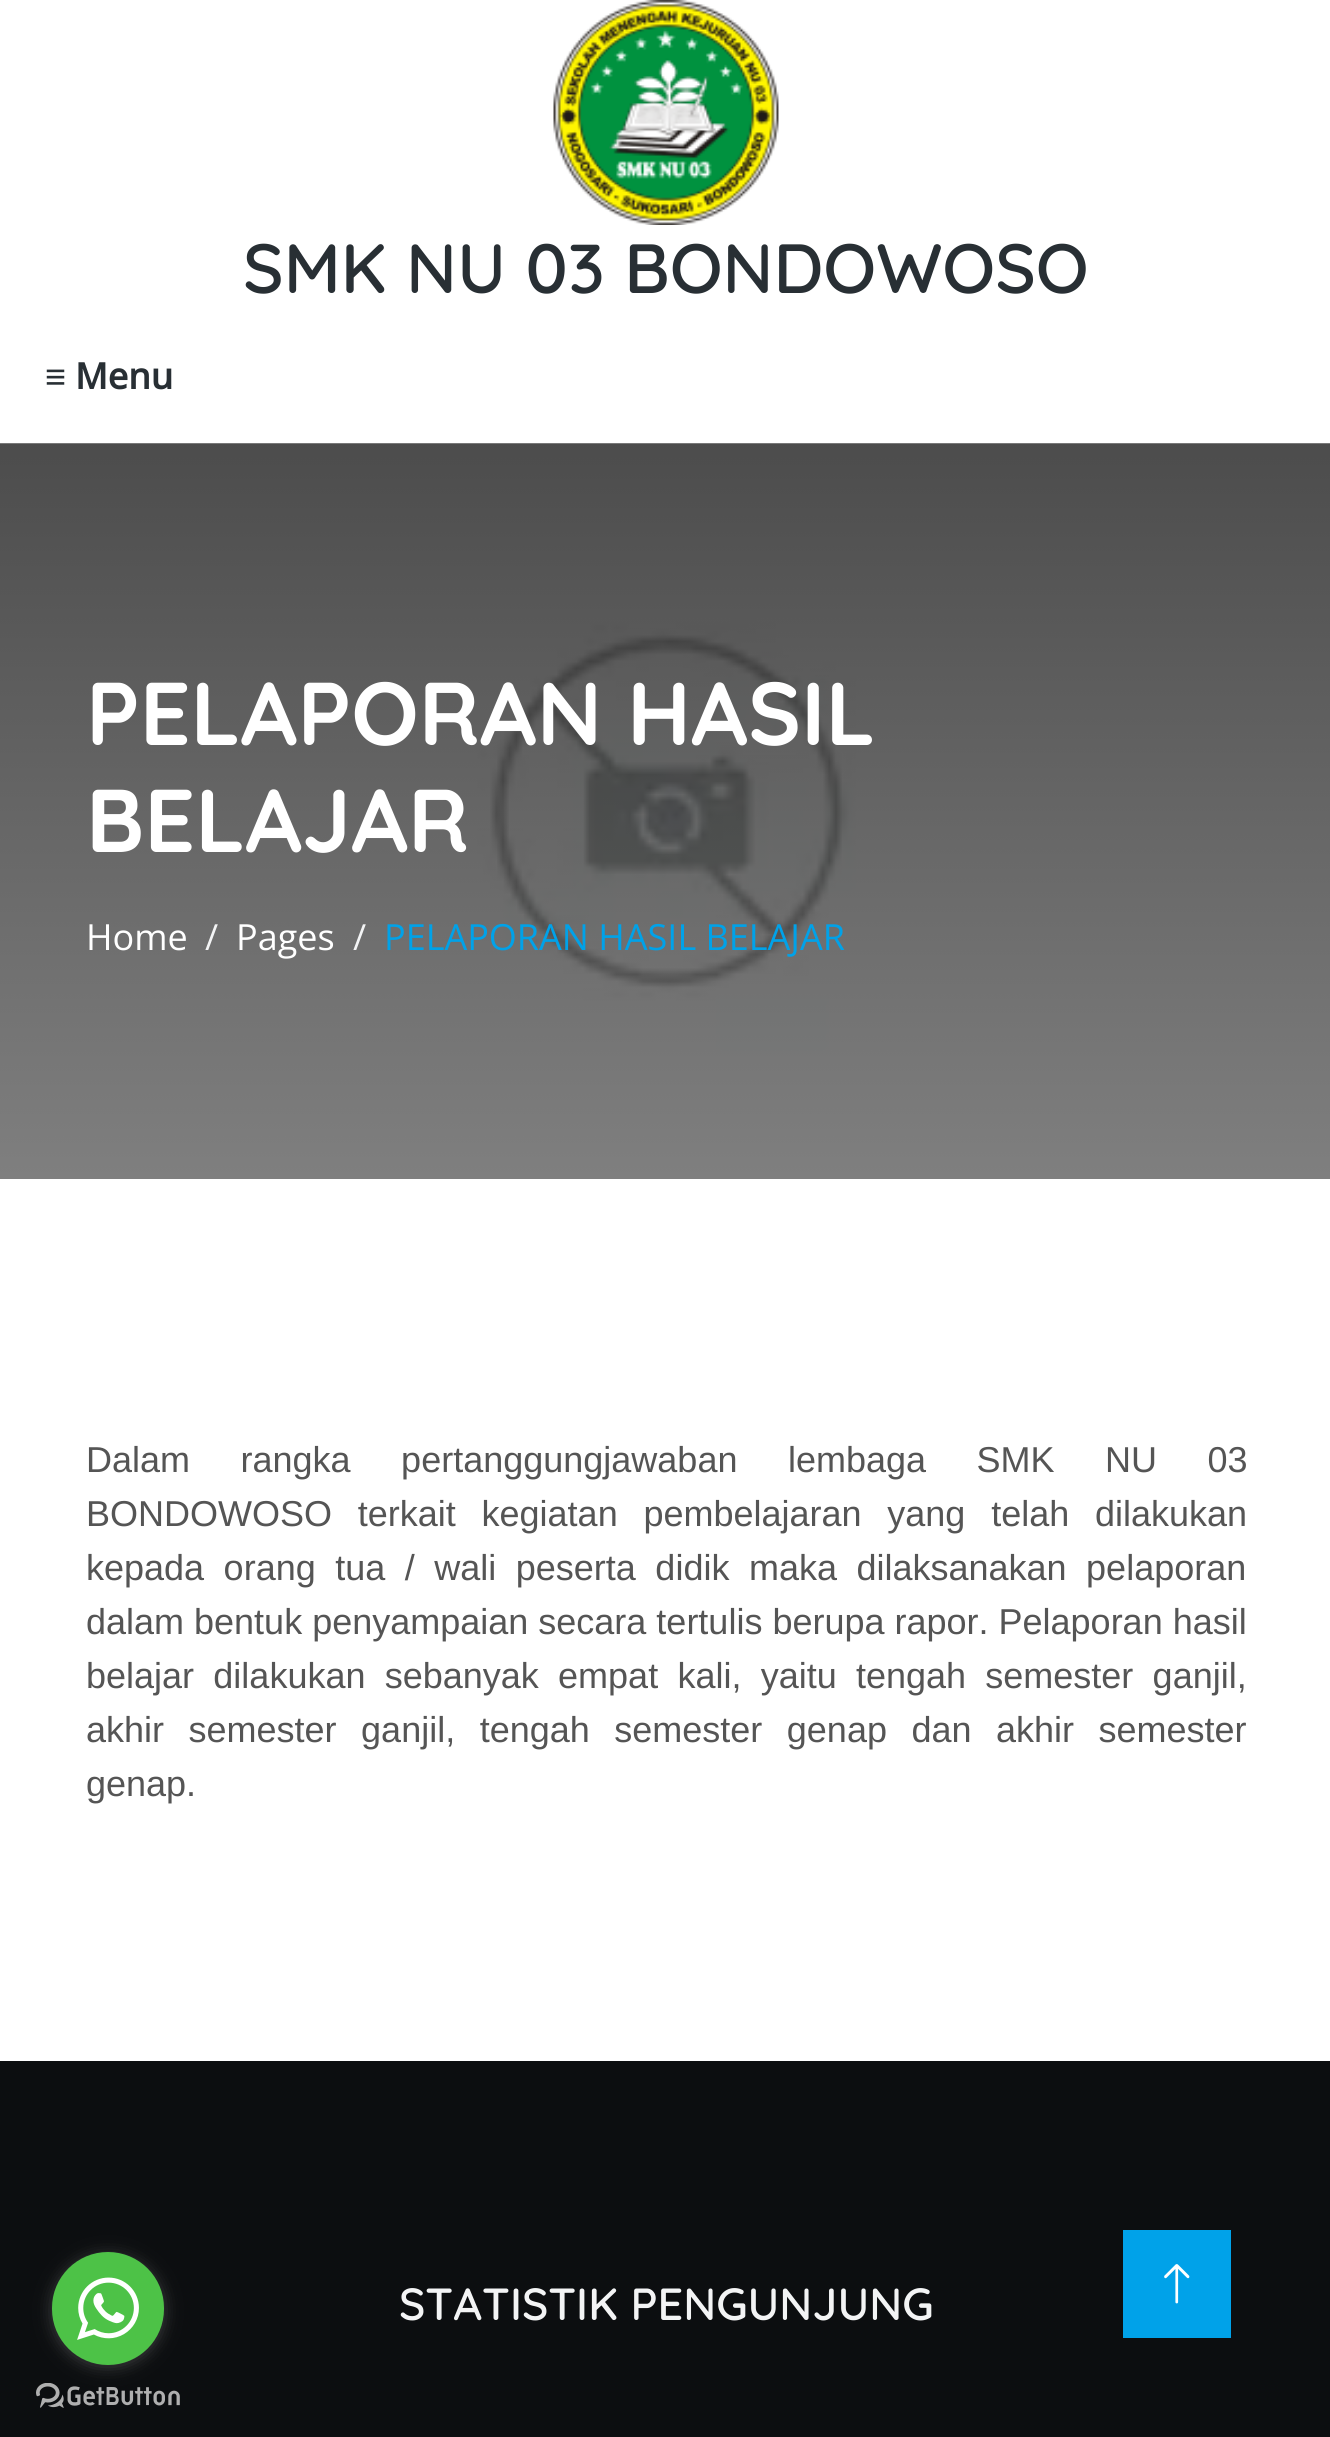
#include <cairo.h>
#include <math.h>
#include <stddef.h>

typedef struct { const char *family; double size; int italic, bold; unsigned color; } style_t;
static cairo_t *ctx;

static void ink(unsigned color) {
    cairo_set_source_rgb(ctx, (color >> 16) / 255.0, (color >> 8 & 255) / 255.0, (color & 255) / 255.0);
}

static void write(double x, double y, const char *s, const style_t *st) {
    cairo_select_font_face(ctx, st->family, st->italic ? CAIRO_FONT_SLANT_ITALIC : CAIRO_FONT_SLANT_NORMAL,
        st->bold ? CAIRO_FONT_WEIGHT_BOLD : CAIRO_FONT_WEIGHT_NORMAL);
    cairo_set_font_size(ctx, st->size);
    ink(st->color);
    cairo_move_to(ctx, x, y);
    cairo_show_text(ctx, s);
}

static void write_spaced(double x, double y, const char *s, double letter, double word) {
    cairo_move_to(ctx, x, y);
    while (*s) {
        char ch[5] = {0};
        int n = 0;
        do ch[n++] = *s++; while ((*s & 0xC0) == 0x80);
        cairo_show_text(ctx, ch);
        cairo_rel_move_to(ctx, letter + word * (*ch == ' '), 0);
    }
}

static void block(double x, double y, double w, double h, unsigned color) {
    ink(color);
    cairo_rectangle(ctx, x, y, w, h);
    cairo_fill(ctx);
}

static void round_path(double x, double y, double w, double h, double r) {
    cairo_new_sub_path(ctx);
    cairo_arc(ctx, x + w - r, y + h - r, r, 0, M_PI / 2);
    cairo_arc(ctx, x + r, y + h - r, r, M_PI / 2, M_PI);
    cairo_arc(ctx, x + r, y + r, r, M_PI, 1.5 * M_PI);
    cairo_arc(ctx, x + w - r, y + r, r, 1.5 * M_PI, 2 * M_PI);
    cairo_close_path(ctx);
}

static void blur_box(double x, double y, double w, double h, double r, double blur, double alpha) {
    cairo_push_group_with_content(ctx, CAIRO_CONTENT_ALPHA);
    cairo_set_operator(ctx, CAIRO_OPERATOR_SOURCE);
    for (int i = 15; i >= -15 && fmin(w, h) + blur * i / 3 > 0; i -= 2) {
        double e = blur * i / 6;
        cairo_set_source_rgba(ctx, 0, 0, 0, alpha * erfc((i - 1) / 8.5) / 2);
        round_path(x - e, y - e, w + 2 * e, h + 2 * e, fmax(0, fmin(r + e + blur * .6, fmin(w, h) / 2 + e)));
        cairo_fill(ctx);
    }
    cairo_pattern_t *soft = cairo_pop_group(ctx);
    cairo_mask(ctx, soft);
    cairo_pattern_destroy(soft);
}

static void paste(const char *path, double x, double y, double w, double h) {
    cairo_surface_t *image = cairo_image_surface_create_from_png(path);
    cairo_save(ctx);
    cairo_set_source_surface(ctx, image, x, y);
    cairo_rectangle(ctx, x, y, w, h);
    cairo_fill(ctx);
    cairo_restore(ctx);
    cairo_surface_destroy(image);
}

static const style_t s1 = {"Quicksand SemiBold", 69.5, 0, 0, 0x282f34};
static const style_t s2 = {"Liberation Sans", 36, 0, 1, 0x282f34};
static const style_t s3 = {"Open Sans", 36, 0, 1, 0x282f34};
static const style_t s4 = {"Quicksand", 89, 0, 1, 0xffffff};
static const style_t s5 = {"Open Sans", 36, 0, 0, 0xffffff};
static const style_t s6 = {"Open Sans", 36, 0, 0, 0xf3f4f5};
static const style_t s7 = {"Open Sans", 36, 0, 0, 0x00a2e9};
static const style_t s8 = {"Liberation Sans", 36, 0, 0, 0x555555};
static const style_t s9 = {"Quicksand SemiBold", 45, 0, 0, 0xf3f4f5};

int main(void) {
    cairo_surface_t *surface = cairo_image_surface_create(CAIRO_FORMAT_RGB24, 1330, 2437);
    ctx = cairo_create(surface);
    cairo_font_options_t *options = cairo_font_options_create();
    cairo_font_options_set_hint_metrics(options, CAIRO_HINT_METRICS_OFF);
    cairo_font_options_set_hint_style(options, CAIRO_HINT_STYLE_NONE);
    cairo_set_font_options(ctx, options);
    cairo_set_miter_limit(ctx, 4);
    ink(0xffffff);
    cairo_paint(ctx);
    paste("pic1.png", 553, 0, 226, 225);
    write(243, 293, "SMK NU 03 BONDOWOSO", &s1);
    write(45, 389, "≡", &s2);
    write(75, 389, "Menu", &s3);
    paste("pic2.png", 0, 443, 1330, 736);
    write(86, 745, "PELAPORAN HASIL", &s4);
    write(86, 852, "BELAJAR", &s4);
    write(86, 950, "Home", &s5);
    write(205, 950, "/", &s6);
    write(236, 950, "Pages", &s5);
    write(353, 950, "/", &s6);
    write(384, 950, "PELAPORAN HASIL BELAJAR", &s7);
    cairo_select_font_face(ctx, "Liberation Sans", CAIRO_FONT_SLANT_NORMAL, CAIRO_FONT_WEIGHT_NORMAL);
    ink(0x555555);
    write_spaced(86, 1472, "Dalam rangka pertanggungjawaban lembaga SMK NU 03", 0, 40.5);
    write_spaced(86, 1526, "BONDOWOSO terkait kegiatan pembelajaran yang telah dilakukan", 0, 15.75);
    write_spaced(86, 1580, "kepada orang tua / wali peserta didik maka dilaksanakan pelaporan", 0, 9.5);
    write(86, 1634, "dalam bentuk penyampaian secara tertulis berupa rapor. Pelaporan hasil", &s8);
    write_spaced(86, 1688, "belajar dilakukan sebanyak empat kali, yaitu tengah semester ganjil,", 0, 9.25);
    write_spaced(86, 1742, "akhir semester ganjil, tengah semester genap dan akhir semester", 0, 14.5);
    write(86, 1796, "genap.", &s8);
    block(0, 2061, 1330, 376, 0x0c0e10);
    paste("pic4.png", 36, 2383, 144, 25);
    ink(0x888888);
    blur_box(52, 2255, 112, 112, 56, 8, 0.4);
    ink(0x4dc247);
    round_path(52, 2252, 112, 113, 56);
    cairo_fill(ctx);
    paste("pic3.png", 77, 2277, 62, 63);
    write(399, 2320, "STATISTIK PENGUNJUNG", &s9);
    block(1123, 2230, 108, 108, 0x00a2e9);
    paste("pic5.png", 1164, 2264, 26, 40);
    cairo_surface_write_to_png(surface, "screenshot.png");
    cairo_font_options_destroy(options);
    cairo_destroy(ctx);
    cairo_surface_destroy(surface);
    return 0;
}
